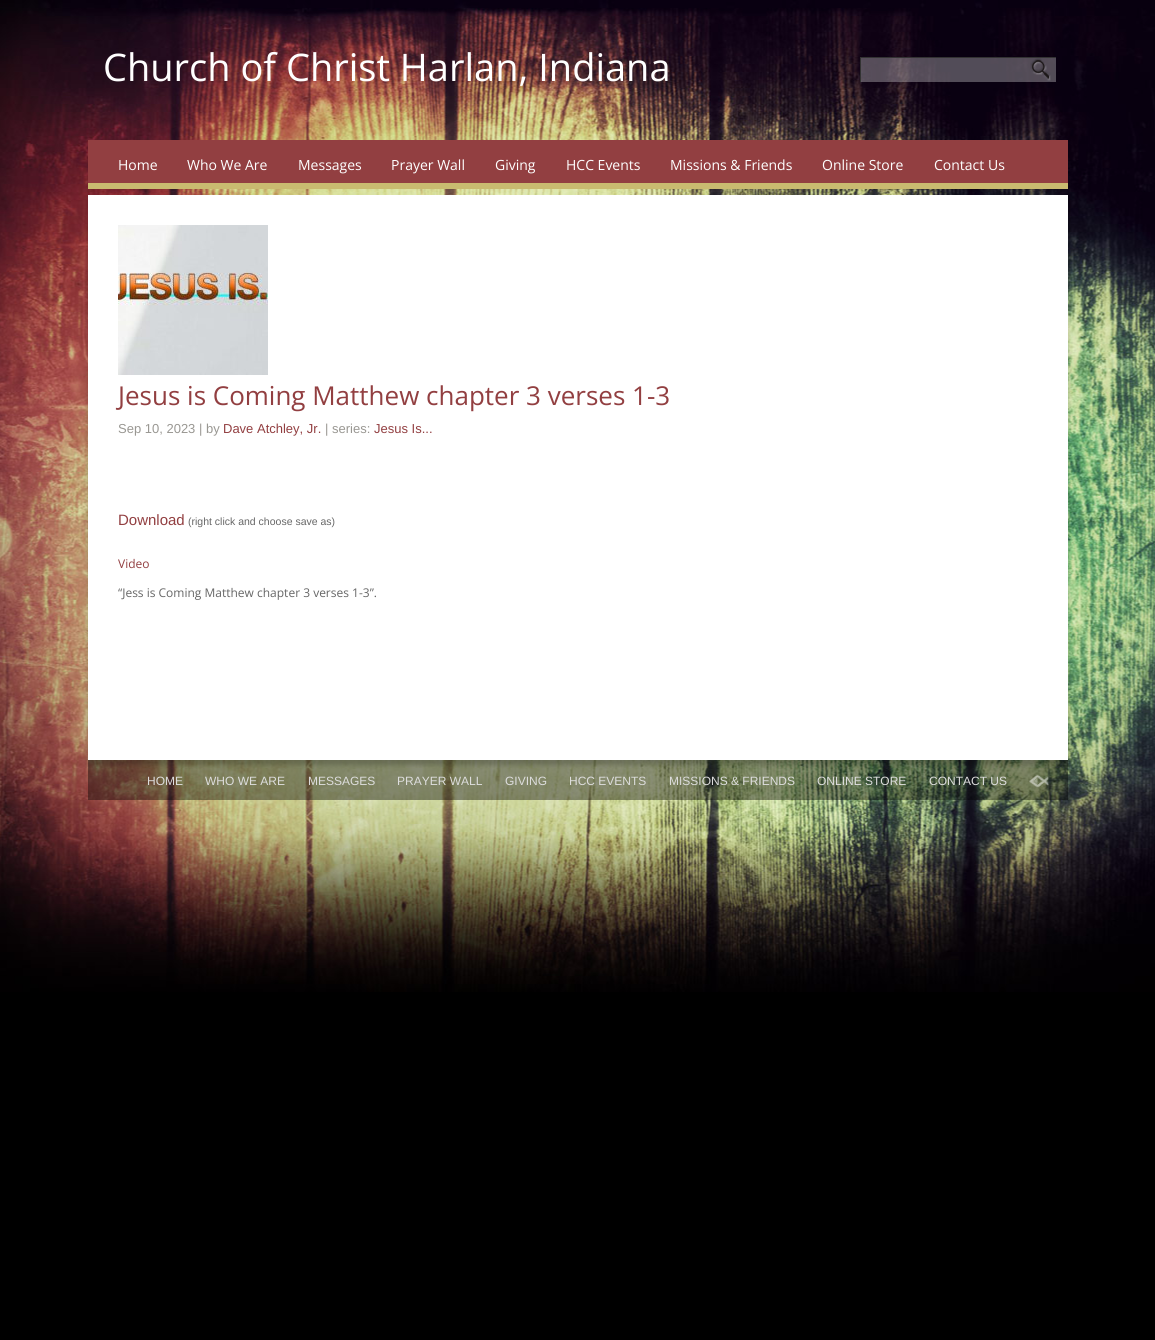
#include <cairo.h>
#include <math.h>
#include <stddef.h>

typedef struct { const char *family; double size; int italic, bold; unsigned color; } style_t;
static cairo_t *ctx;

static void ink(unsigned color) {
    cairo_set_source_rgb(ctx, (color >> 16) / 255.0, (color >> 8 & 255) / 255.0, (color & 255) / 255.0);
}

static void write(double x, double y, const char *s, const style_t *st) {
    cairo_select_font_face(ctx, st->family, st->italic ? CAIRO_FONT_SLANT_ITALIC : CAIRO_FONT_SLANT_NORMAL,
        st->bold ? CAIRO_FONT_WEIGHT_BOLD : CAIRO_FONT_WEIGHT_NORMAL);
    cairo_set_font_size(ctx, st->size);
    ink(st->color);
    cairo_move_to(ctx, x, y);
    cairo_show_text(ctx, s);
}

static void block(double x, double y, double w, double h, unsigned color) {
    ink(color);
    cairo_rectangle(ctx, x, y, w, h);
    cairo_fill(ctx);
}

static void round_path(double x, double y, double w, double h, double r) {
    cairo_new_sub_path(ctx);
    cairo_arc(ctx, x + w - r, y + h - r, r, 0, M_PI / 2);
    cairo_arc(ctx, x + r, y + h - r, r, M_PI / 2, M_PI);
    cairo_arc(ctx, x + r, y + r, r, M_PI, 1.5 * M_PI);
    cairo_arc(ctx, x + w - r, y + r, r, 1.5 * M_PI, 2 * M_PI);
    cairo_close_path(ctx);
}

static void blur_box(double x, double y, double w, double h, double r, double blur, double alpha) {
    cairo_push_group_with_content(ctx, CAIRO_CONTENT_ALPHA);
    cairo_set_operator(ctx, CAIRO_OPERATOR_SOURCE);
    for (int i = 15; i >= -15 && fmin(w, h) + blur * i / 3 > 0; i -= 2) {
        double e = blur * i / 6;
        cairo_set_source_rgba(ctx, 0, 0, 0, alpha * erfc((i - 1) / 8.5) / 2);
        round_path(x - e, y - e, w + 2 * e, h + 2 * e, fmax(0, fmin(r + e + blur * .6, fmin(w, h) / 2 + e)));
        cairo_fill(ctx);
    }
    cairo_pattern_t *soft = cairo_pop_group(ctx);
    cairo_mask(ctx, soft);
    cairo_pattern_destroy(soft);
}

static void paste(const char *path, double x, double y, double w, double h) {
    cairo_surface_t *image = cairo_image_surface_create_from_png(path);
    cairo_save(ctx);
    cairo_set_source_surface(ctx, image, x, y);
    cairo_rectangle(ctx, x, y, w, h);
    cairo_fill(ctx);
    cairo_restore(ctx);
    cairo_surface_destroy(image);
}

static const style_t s1 = {"Open Sans", 38, 0, 0, 0xffffff};
static const style_t s2 = {"Open Sans", 14, 0, 0, 0xffffff};
static const style_t s3 = {"Open Sans", 26, 0, 0, 0x923f41};
static const style_t s4 = {"Liberation Sans", 13, 0, 0, 0x999792};
static const style_t s5 = {"Liberation Sans", 13, 0, 0, 0x923f41};
static const style_t s6 = {"Liberation Sans", 15, 0, 0, 0x923f41};
static const style_t s7 = {"Liberation Sans", 10.5, 0, 0, 0x666666};
static const style_t s8 = {"Open Sans", 12, 0, 0, 0x923f41};
static const style_t s9 = {"Open Sans", 12, 0, 0, 0x666666};
static const style_t s10 = {"Liberation Sans", 12, 0, 0, 0xdddddd};

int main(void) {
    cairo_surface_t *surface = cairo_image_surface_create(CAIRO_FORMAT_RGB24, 1155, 1340);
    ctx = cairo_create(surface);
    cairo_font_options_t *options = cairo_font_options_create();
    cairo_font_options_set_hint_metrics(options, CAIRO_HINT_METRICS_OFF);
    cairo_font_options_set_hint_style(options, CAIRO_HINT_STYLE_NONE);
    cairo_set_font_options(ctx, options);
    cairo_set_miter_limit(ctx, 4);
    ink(0x000000);
    cairo_paint(ctx);
    paste("pic1.png", 0, 0, 1155, 992);
    write(103, 81, "Church of Christ Harlan, Indiana", &s1);
    cairo_set_source_rgba(ctx, 1, 1, 1, 0.3);
    cairo_rectangle(ctx, 861, 58, 195, 24);
    cairo_fill(ctx);
    cairo_save(ctx);
    cairo_rectangle(ctx, 860, 57, 196, 25);
    cairo_clip(ctx);
    ink(0x333333);
    cairo_set_fill_rule(ctx, CAIRO_FILL_RULE_EVEN_ODD);
    cairo_new_path(ctx);
    cairo_move_to(ctx, 761, -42);
    cairo_line_to(ctx, 1155, -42);
    cairo_line_to(ctx, 1155, 181);
    cairo_line_to(ctx, 761, 181);
    cairo_close_path(ctx);
    cairo_move_to(ctx, 861, 58);
    cairo_line_to(ctx, 1057, 58);
    cairo_line_to(ctx, 1057, 83);
    cairo_line_to(ctx, 861, 83);
    cairo_close_path(ctx);
    cairo_fill(ctx);
    cairo_restore(ctx);
    paste("pic2.png", 1030, 58, 21, 23);
    block(88, 140, 980, 43, 0x923f41);
    block(88, 183, 980, 6, 0xc9bb70);
    write(118, 170, "Home", &s2);
    write(187, 170, "Who We Are", &s2);
    write(298, 170, "Messages", &s2);
    write(391, 170, "Prayer Wall", &s2);
    write(495, 170, "Giving", &s2);
    write(566, 170, "HCC Events", &s2);
    write(670, 170, "Missions & Friends", &s2);
    write(822, 170, "Online Store", &s2);
    write(934, 170, "Contact Us", &s2);
    cairo_set_source_rgba(ctx, 0, 0, 0, 0.4);
    cairo_rectangle(ctx, 88, 760, 980, 40);
    cairo_fill(ctx);
    ink(0x000000);
    blur_box(88, 200, 980, 565, 0, 2.5, 0.2);
    block(88, 195, 980, 565, 0xffffff);
    paste("pic3.png", 118, 225, 150, 150);
    write(118, 405, "Jesus is Coming Matthew chapter 3 verses 1-3", &s3);
    write(118, 433, "Sep 10, 2023 | by", &s4);
    write(223, 433, "Dave Atchley, Jr.", &s5);
    write(325, 433, "| series:", &s4);
    write(374, 433, "Jesus Is...", &s5);
    write(118, 525, "Download", &s6);
    write(188, 525, "(right click and choose save as)", &s7);
    write(118, 568, "Video", &s8);
    write(118, 597, "“Jess is Coming Matthew chapter 3 verses 1-3”.", &s9);
    write(147, 785, "HOME", &s10);
    write(205, 785, "WHO WE ARE", &s10);
    write(308, 785, "MESSAGES", &s10);
    write(397, 785, "PRAYER WALL", &s10);
    write(505, 785, "GIVING", &s10);
    write(569, 785, "HCC EVENTS", &s10);
    write(669, 785, "MISSIONS & FRIENDS", &s10);
    write(817, 785, "ONLINE STORE", &s10);
    write(929, 785, "CONTACT US", &s10);
    paste("pic4.png", 1029, 775, 20, 13);
    cairo_surface_write_to_png(surface, "screenshot.png");
    cairo_font_options_destroy(options);
    cairo_destroy(ctx);
    cairo_surface_destroy(surface);
    return 0;
}
